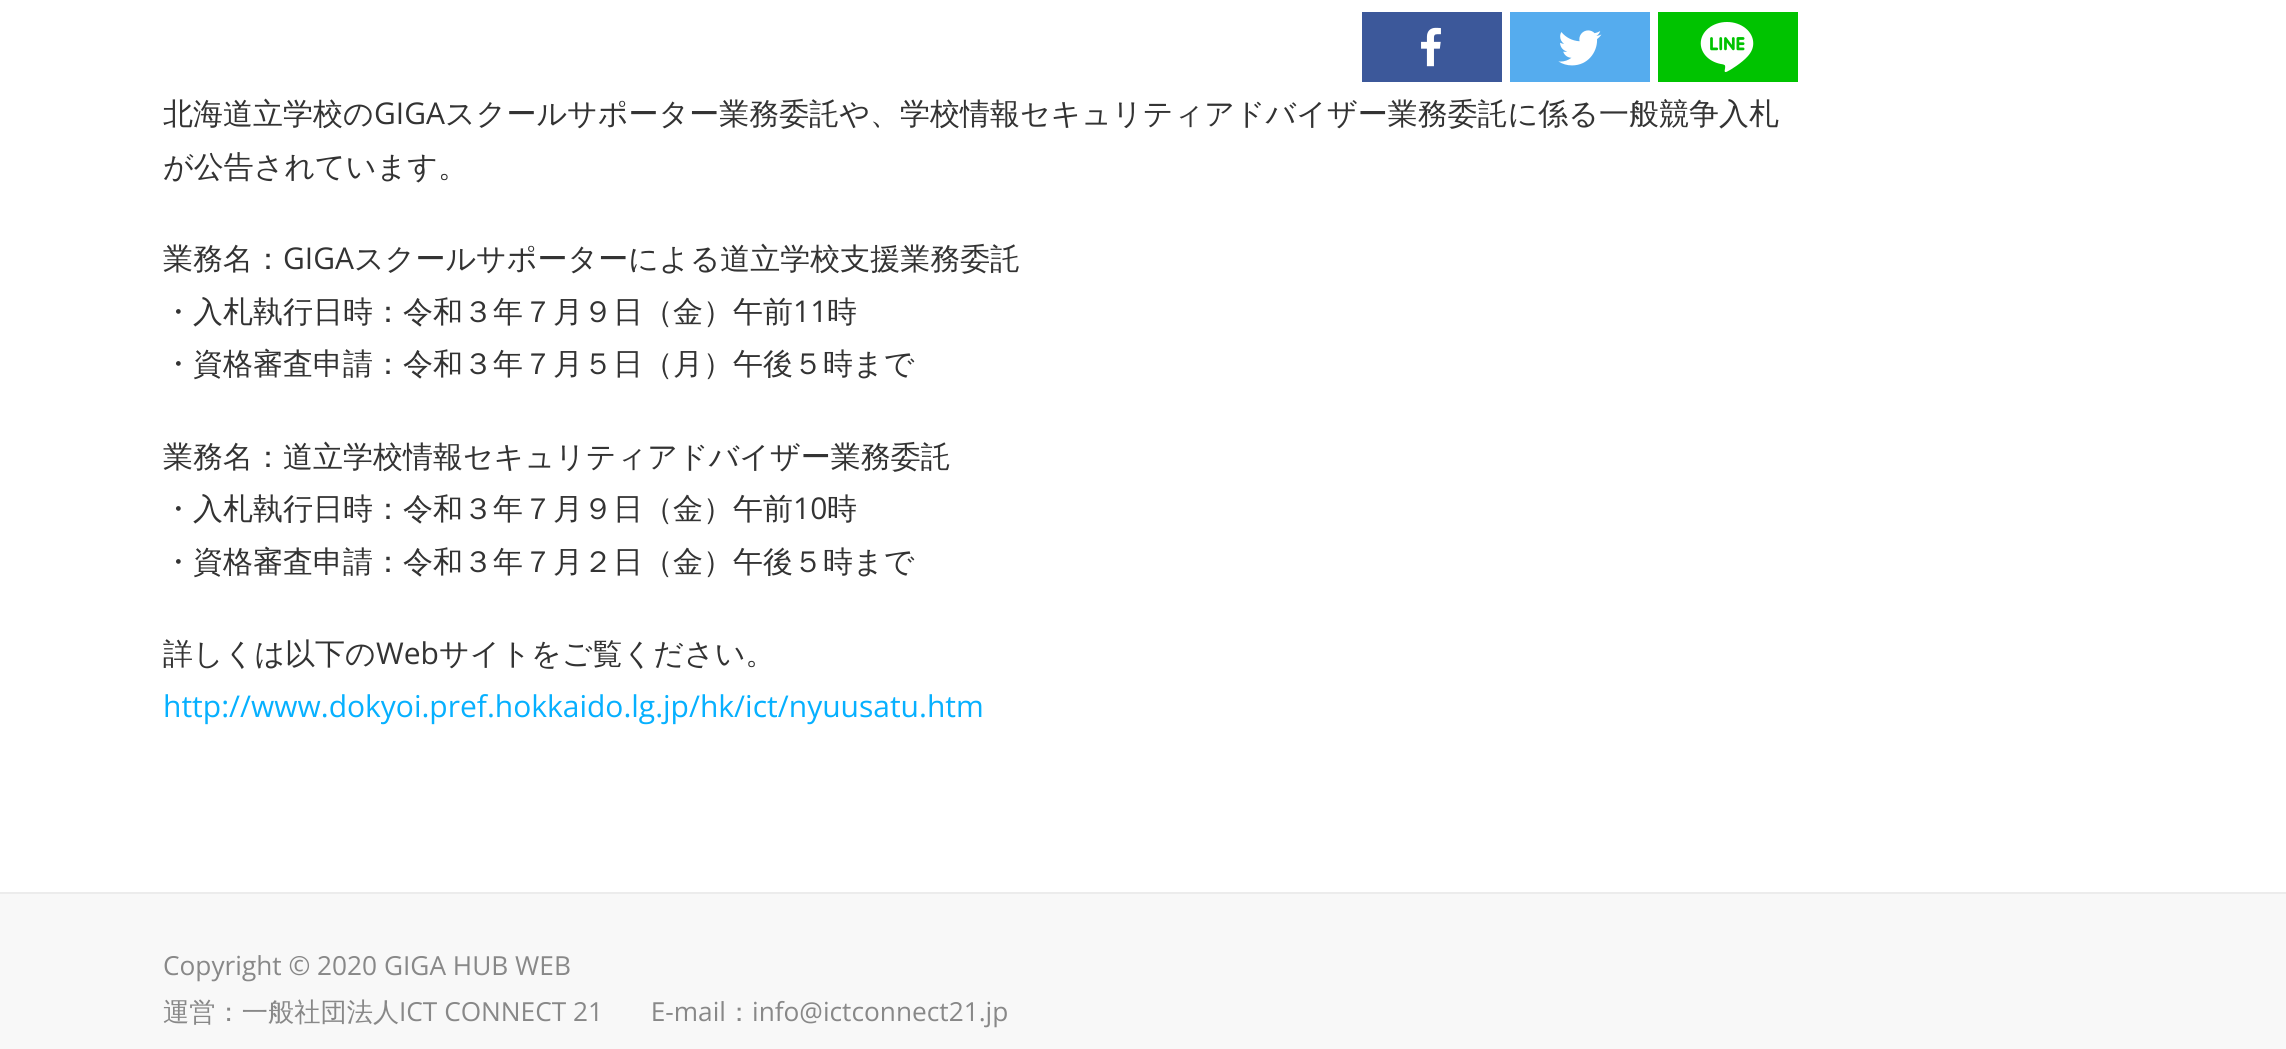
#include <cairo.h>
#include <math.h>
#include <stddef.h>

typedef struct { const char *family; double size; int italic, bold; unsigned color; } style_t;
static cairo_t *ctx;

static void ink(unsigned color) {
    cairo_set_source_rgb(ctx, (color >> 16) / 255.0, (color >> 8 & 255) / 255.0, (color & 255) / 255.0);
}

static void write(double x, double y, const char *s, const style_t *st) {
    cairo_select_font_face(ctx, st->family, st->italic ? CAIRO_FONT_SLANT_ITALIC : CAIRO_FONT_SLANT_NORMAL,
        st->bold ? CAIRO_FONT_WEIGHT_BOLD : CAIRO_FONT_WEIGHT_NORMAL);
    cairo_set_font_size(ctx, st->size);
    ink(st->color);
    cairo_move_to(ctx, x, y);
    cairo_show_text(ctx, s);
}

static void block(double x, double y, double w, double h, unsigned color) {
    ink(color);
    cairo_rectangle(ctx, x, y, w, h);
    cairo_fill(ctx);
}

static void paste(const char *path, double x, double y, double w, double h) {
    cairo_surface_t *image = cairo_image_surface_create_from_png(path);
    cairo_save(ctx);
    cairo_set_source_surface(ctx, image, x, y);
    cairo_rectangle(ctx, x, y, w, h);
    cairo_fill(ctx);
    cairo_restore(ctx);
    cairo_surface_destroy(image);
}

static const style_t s1 = {"WenQuanYi Zen Hei Medium", 30, 0, 0, 0x333333};
static const style_t s2 = {"Open Sans", 30, 0, 0, 0x333333};
static const style_t s3 = {"Open Sans", 30, 0, 0, 0x06b0ff};
static const style_t s4 = {"Open Sans", 26.25, 0, 0, 0x888888};
static const style_t s5 = {"WenQuanYi Zen Hei Medium", 26.25, 0, 0, 0x888888};

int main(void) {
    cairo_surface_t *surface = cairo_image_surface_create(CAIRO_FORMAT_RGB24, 2286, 1049);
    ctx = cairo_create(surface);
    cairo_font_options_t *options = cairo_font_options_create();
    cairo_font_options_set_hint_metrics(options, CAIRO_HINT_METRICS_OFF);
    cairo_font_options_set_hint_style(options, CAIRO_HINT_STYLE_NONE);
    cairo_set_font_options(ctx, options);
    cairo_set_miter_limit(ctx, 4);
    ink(0xffffff);
    cairo_paint(ctx);
    block(1362, 12, 140, 70, 0x3c589a);
    paste("pic1.png", 1421, 27, 20, 40);
    block(1510, 12, 140, 70, 0x55acee);
    paste("pic2.png", 1558, 30, 44, 36);
    block(1658, 12, 140, 70, 0x00c300);
    paste("pic3.png", 1700, 22, 54, 50);
    write(163, 124, "北海道立学校の", &s1);
    write(374, 124, "GIGA", &s2);
    write(445, 124, "スクールサポーター業務委託や、学校情報セキュリティアドバイザー業務委託に係る一般競争入札", &s1);
    write(163, 177, "が公告されています。", &s1);
    write(163, 269, "業務名：", &s1);
    write(283, 269, "GIGA", &s2);
    write(354, 269, "スクールサポーターによる道立学校支援業務委託", &s1);
    write(163, 322, "・入札執行日時：令和３年７月９日（金）午前", &s1);
    write(793, 322, "11", &s2);
    write(827, 322, "時", &s1);
    write(163, 374, "・資格審査申請：令和３年７月５日（月）午後５時まで", &s1);
    write(163, 467, "業務名：道立学校情報セキュリティアドバイザー業務委託", &s1);
    write(163, 519, "・入札執行日時：令和３年７月９日（金）午前", &s1);
    write(793, 519, "10", &s2);
    write(827, 519, "時", &s1);
    write(163, 572, "・資格審査申請：令和３年７月２日（金）午後５時まで", &s1);
    write(163, 664, "詳しくは以下の", &s1);
    write(376, 664, "Web", &s2);
    write(439, 664, "サイトをご覧ください。", &s1);
    write(163, 717, "http://www.dokyoi.pref.hokkaido.lg.jp/hk/ict/nyuusatu.htm", &s3);
    block(0, 894, 2286, 155, 0xf8f8f8);
    block(0, 892, 2286, 2, 0xececec);
    write(163, 975, "Copyright © 2020 GIGA HUB WEB", &s4);
    write(163, 1021, "運営：一般社団法人", &s5);
    write(399, 1021, "ICT CONNECT 21       E-mail", &s4);
    write(726, 1021, "：", &s5);
    write(752, 1021, "info@ictconnect21.jp", &s4);
    cairo_surface_write_to_png(surface, "screenshot.png");
    cairo_font_options_destroy(options);
    cairo_destroy(ctx);
    cairo_surface_destroy(surface);
    return 0;
}
